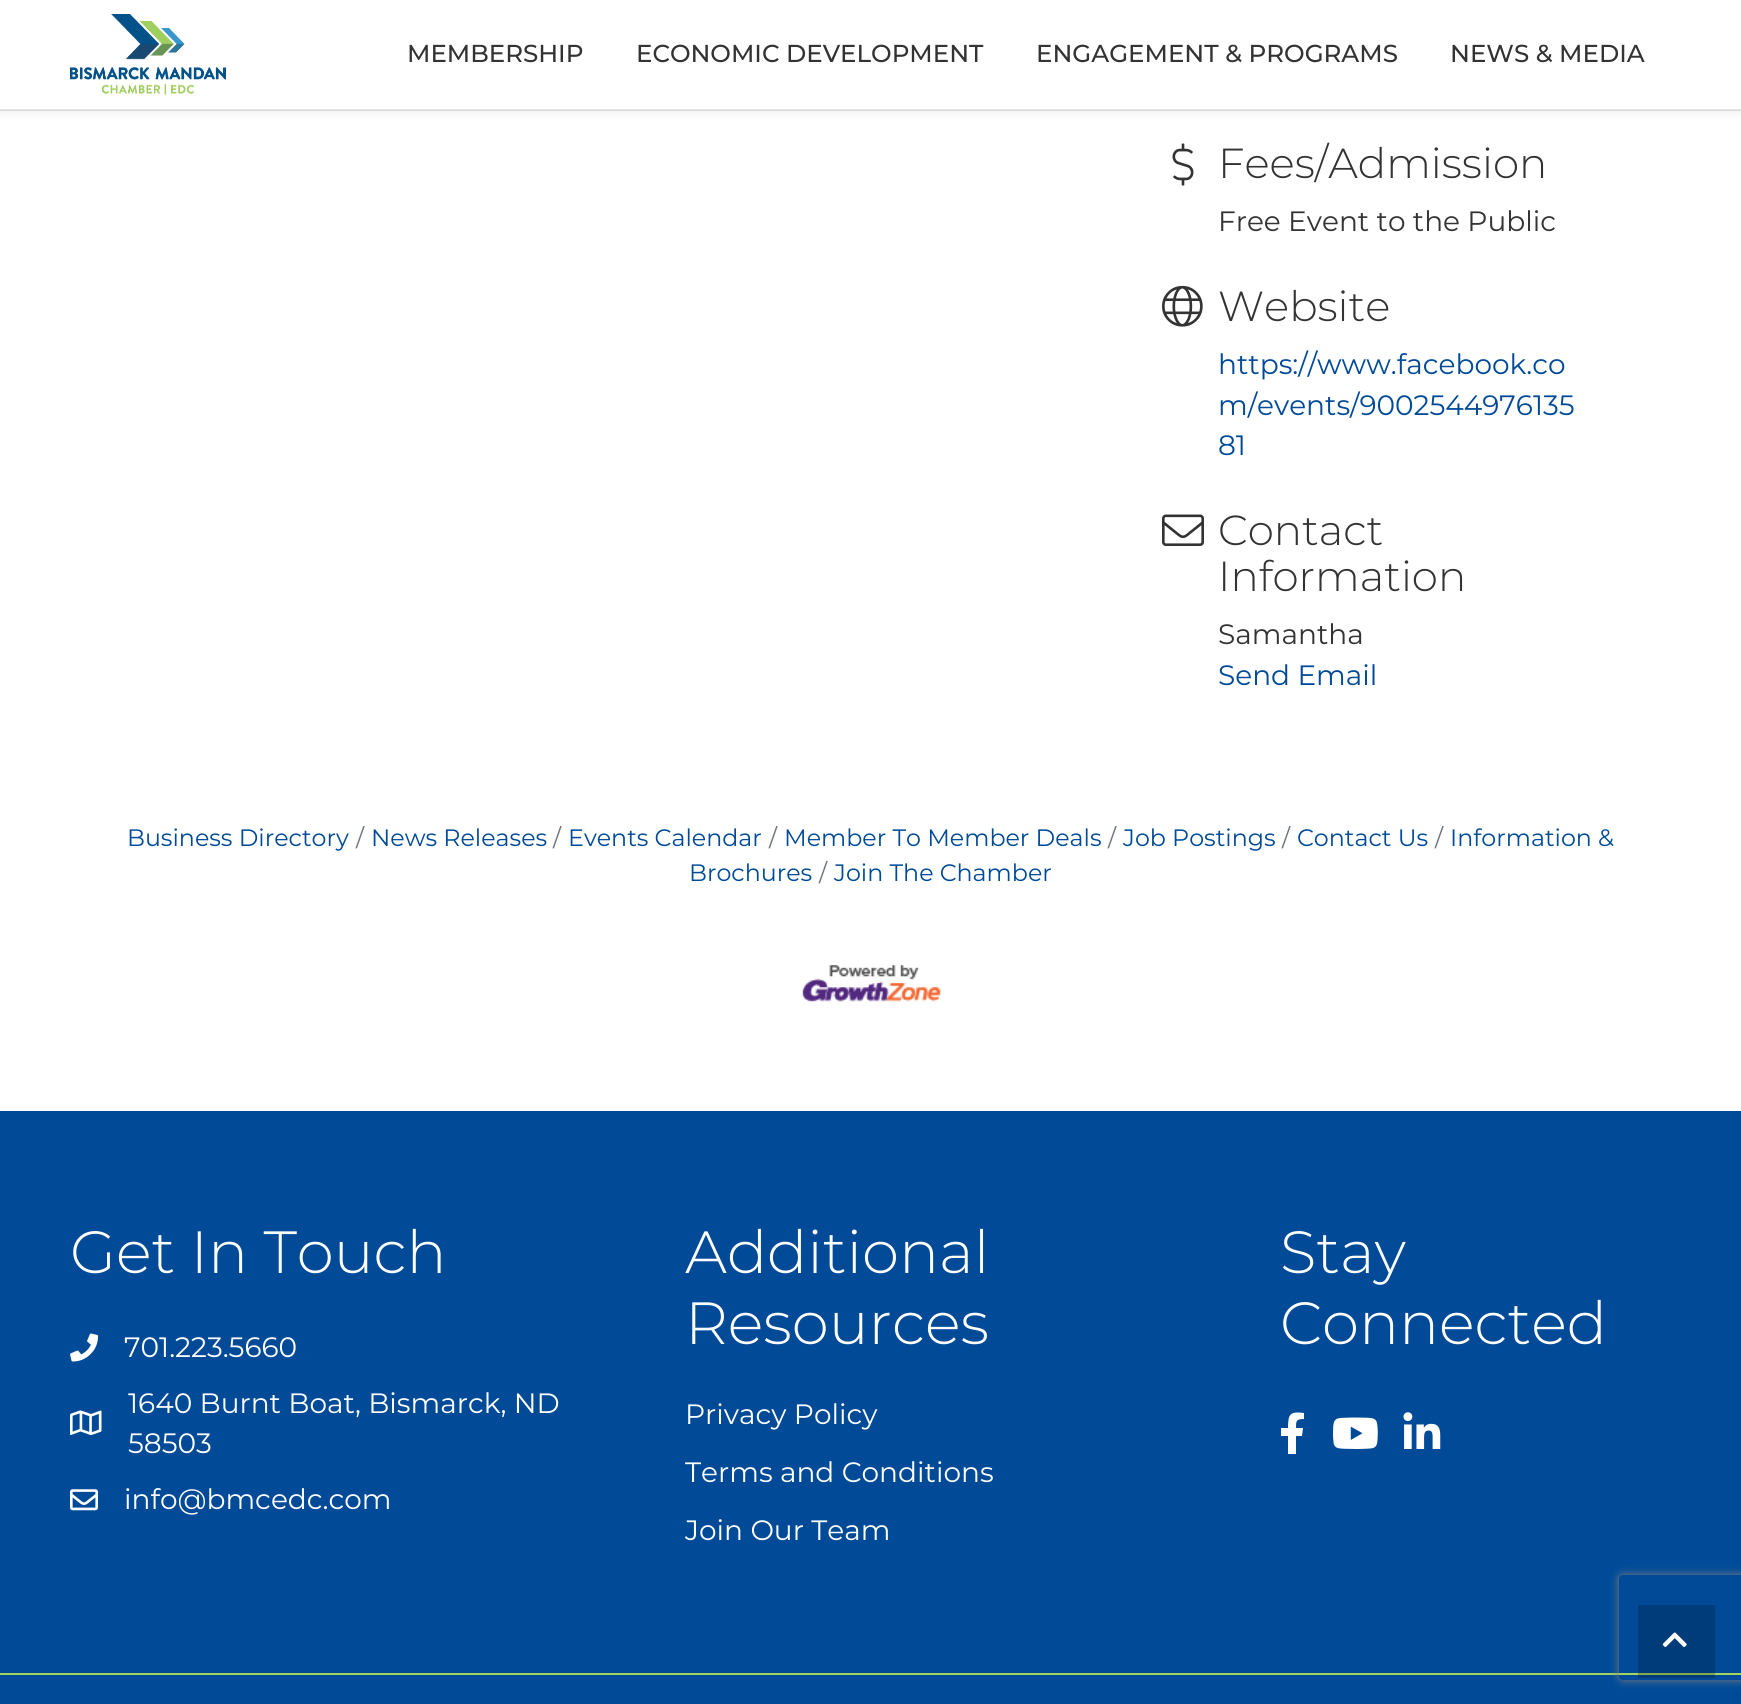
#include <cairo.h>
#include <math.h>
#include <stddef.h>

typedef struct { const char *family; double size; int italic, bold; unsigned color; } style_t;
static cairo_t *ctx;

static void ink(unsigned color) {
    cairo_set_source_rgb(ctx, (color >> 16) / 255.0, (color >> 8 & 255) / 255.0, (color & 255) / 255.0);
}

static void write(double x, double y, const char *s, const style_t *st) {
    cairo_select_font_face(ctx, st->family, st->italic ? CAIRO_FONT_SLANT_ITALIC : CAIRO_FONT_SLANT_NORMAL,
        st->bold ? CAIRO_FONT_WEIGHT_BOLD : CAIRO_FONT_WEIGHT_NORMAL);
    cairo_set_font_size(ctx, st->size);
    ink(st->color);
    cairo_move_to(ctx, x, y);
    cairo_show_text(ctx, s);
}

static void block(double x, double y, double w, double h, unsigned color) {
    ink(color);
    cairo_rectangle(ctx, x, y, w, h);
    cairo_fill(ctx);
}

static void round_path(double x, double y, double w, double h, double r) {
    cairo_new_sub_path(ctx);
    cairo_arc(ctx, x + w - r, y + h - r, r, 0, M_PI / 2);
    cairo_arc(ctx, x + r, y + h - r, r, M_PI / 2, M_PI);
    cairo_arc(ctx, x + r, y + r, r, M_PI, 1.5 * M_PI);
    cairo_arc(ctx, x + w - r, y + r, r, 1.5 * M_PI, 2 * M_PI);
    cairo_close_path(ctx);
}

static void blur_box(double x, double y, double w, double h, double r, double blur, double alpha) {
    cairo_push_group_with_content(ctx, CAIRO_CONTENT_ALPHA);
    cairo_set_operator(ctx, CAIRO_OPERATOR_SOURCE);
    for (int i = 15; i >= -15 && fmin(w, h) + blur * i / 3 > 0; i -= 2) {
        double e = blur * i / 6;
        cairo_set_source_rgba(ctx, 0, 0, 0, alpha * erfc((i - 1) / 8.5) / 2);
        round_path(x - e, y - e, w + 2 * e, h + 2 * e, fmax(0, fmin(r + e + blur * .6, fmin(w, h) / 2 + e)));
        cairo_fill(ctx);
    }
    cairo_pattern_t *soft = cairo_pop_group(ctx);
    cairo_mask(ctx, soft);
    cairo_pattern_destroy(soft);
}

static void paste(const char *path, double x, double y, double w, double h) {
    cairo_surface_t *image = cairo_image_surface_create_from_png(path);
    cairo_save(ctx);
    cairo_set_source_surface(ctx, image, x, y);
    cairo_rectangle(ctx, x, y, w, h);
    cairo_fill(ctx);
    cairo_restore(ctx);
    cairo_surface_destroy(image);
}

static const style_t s1 = {"Montserrat Medium", 24.5, 0, 0, 0x333333};
static const style_t s2 = {"Montserrat Light", 42, 0, 0, 0x333333};
static const style_t s3 = {"Montserrat", 28, 0, 0, 0x333333};
static const style_t s4 = {"Montserrat", 28, 0, 0, 0x004a98};
static const style_t s5 = {"Montserrat", 23.75, 0, 0, 0x6c757d};
static const style_t s6 = {"Montserrat", 23.75, 0, 0, 0x004a98};
static const style_t s7 = {"Montserrat Light", 59.5, 0, 0, 0xffffff};
static const style_t s8 = {"Montserrat", 28, 0, 0, 0xffffff};

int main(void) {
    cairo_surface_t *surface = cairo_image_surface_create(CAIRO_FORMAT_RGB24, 1741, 1704);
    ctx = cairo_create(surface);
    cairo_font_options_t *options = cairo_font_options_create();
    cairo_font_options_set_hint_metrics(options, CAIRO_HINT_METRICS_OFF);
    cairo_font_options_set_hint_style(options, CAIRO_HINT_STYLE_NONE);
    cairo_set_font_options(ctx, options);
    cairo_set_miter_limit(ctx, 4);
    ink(0xffffff);
    cairo_paint(ctx);
    ink(0x000000);
    blur_box(0, 0, 1741, 110, 0, 6, 0.1);
    block(0, 0, 1741, 110, 0xffffff);
    cairo_set_source_rgba(ctx, 0.2, 0.2, 0.2, 0.13);
    cairo_rectangle(ctx, 0, 109, 1741, 2);
    cairo_fill(ctx);
    paste("pic1.png", 70, 14, 156, 81);
    write(407, 62, "MEMBERSHIP", &s1);
    write(636, 62, "ECONOMIC DEVELOPMENT", &s1);
    write(1036, 62, "ENGAGEMENT & PROGRAMS", &s1);
    write(1450, 62, "NEWS & MEDIA", &s1);
    paste("pic2.png", 1172, 143, 22, 43);
    write(1218, 178, "Fees/Admission", &s2);
    write(1218, 231, "Free Event to the Public", &s3);
    paste("pic3.png", 1162, 285, 41, 42);
    write(1218, 321, "Website", &s2);
    write(1218, 374, "https://www.facebook.co", &s4);
    write(1218, 415, "m/events/9002544976135", &s4);
    write(1218, 455, "81", &s4);
    paste("pic4.png", 1162, 514, 42, 32);
    write(1218, 545, "Contact", &s2);
    write(1218, 591, "Information", &s2);
    write(1218, 644, "Samantha", &s3);
    write(1218, 685, "Send Email", &s4);
    write(356, 846, "/", &s5);
    write(371, 846, "News Releases", &s6);
    write(553, 846, "/", &s5);
    write(568, 846, "Events Calendar", &s6);
    write(1435, 846, "/", &s5);
    write(1450, 846, "Information &", &s6);
    write(689, 881, "Brochures", &s6);
    write(127, 846, "Business Directory", &s6);
    write(769, 846, "/", &s5);
    write(784, 846, "Member To Member Deals", &s6);
    write(1108, 846, "/", &s5);
    write(1123, 846, "Job Postings", &s6);
    write(1282, 846, "/", &s5);
    write(1297, 846, "Contact Us", &s6);
    write(819, 881, "/", &s5);
    write(834, 881, "Join The Chamber", &s6);
    paste("pic5.png", 802, 965, 139, 37);
    block(0, 1111, 1741, 562, 0x004a98);
    block(1638, 1605, 77, 68, 0x003b7a);
    write(70, 1273, "Get In Touch", &s7);
    paste("pic6.png", 70, 1333, 29, 29);
    write(124, 1357, "701.223.5660", &s8);
    paste("pic7.png", 70, 1410, 32, 25);
    write(128, 1413, "1640 Burnt Boat, Bismarck, ND", &s8);
    write(128, 1453, "58503", &s8);
    paste("pic8.png", 70, 1489, 28, 22);
    write(124, 1509, "info@bmcedc.com", &s8);
    write(685, 1273, "Additional", &s7);
    write(685, 1344, "Resources", &s7);
    write(685, 1424, "Privacy Policy", &s8);
    write(685, 1482, "Terms and Conditions", &s8);
    write(685, 1540, "Join Our Team", &s8);
    write(1280, 1273, "Stay", &s7);
    write(1280, 1344, "Connected", &s7);
    cairo_new_path(ctx);
    cairo_move_to(ctx, 1302, 1436);
    cairo_line_to(ctx, 1296, 1436);
    cairo_line_to(ctx, 1296, 1454);
    cairo_line_to(ctx, 1288, 1454);
    cairo_line_to(ctx, 1288, 1436);
    cairo_line_to(ctx, 1281, 1436);
    cairo_line_to(ctx, 1281, 1428);
    cairo_line_to(ctx, 1288, 1428);
    cairo_curve_to(ctx, 1288, 1414, 1290, 1411, 1304, 1413);
    cairo_line_to(ctx, 1304, 1419);
    cairo_curve_to(ctx, 1296, 1419, 1296, 1421, 1296, 1428);
    cairo_line_to(ctx, 1303, 1428);
    cairo_close_path(ctx);
    cairo_fill(ctx);
    paste("pic9.png", 1333, 1417, 45, 32);
    paste("pic10.png", 1403, 1412, 38, 37);
    block(0, 1675, 1741, 29, 0x004a98);
    block(1638, 1675, 77, 3, 0x003b7a);
    block(0, 1673, 1741, 2, 0xa2d45e);
    block(1638, 1673, 77, 2, 0x82aa4b);
    cairo_save(ctx);
    cairo_set_fill_rule(ctx, CAIRO_FILL_RULE_EVEN_ODD);
    cairo_new_path(ctx);
    cairo_move_to(ctx, 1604, 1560);
    cairo_line_to(ctx, 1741, 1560);
    cairo_line_to(ctx, 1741, 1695);
    cairo_line_to(ctx, 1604, 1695);
    cairo_close_path(ctx);
    cairo_move_to(ctx, 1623, 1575);
    cairo_line_to(ctx, 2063, 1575);
    cairo_curve_to(ctx, 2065, 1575, 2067, 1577, 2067, 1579);
    cairo_line_to(ctx, 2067, 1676);
    cairo_curve_to(ctx, 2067, 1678, 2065, 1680, 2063, 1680);
    cairo_line_to(ctx, 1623, 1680);
    cairo_curve_to(ctx, 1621, 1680, 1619, 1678, 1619, 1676);
    cairo_line_to(ctx, 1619, 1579);
    cairo_curve_to(ctx, 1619, 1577, 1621, 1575, 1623, 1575);
    cairo_close_path(ctx);
    cairo_clip(ctx);
    ink(0x808080);
    blur_box(1619, 1575, 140, 105, 4, 4.5, 1);
    cairo_restore(ctx);
    paste("pic11.png", 1662, 1632, 25, 15);
    cairo_surface_write_to_png(surface, "screenshot.png");
    cairo_font_options_destroy(options);
    cairo_destroy(ctx);
    cairo_surface_destroy(surface);
    return 0;
}
